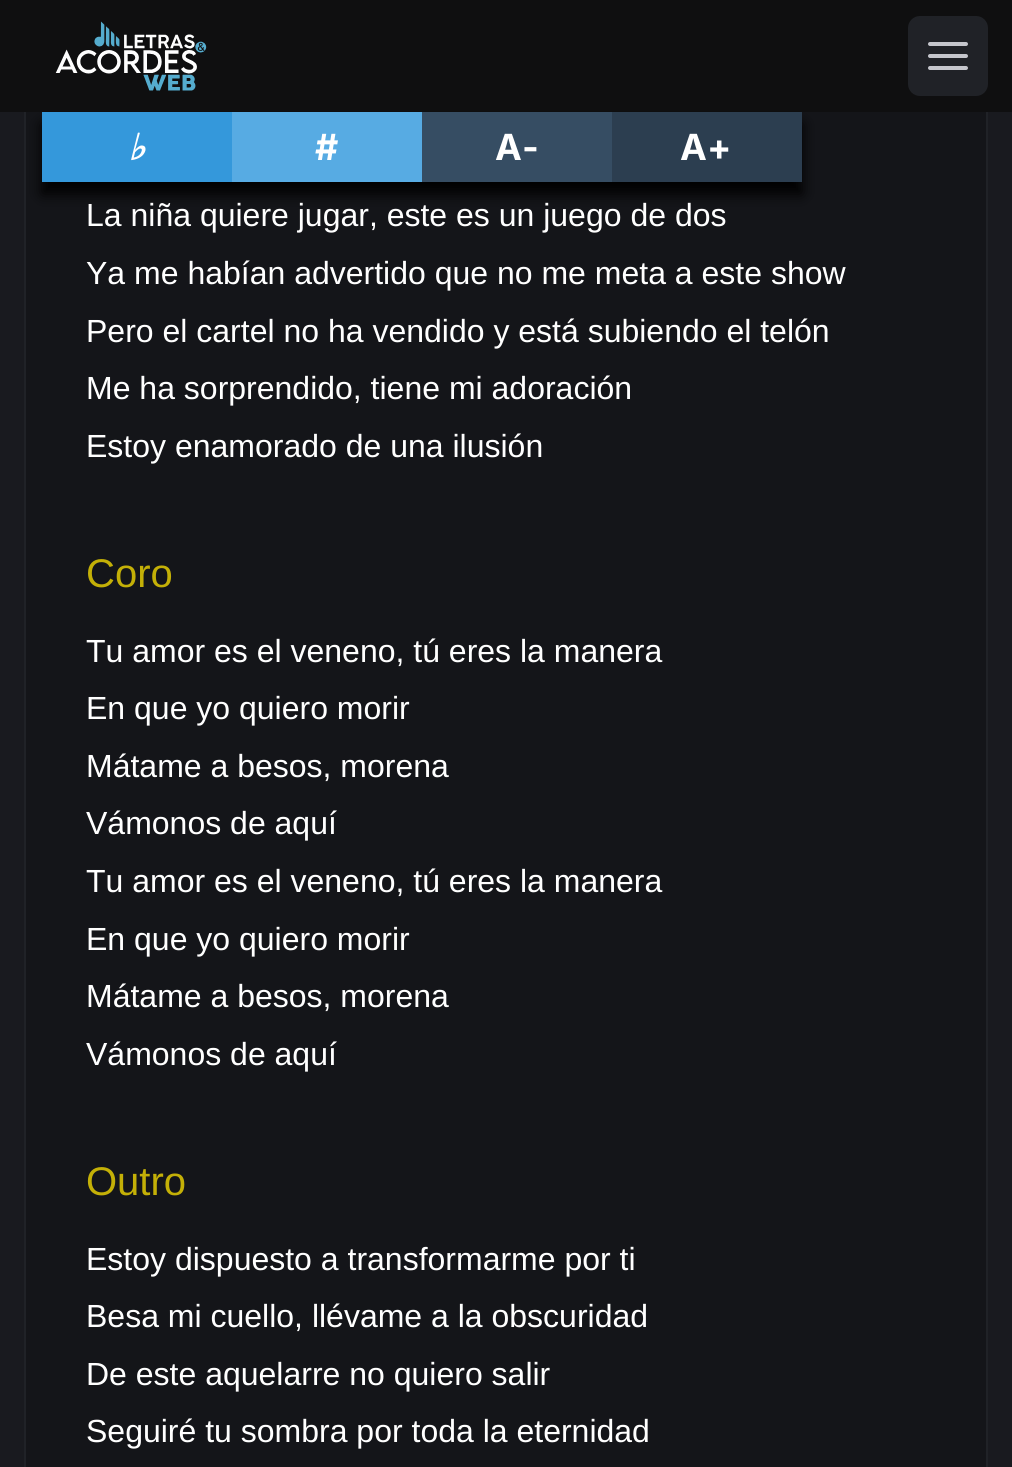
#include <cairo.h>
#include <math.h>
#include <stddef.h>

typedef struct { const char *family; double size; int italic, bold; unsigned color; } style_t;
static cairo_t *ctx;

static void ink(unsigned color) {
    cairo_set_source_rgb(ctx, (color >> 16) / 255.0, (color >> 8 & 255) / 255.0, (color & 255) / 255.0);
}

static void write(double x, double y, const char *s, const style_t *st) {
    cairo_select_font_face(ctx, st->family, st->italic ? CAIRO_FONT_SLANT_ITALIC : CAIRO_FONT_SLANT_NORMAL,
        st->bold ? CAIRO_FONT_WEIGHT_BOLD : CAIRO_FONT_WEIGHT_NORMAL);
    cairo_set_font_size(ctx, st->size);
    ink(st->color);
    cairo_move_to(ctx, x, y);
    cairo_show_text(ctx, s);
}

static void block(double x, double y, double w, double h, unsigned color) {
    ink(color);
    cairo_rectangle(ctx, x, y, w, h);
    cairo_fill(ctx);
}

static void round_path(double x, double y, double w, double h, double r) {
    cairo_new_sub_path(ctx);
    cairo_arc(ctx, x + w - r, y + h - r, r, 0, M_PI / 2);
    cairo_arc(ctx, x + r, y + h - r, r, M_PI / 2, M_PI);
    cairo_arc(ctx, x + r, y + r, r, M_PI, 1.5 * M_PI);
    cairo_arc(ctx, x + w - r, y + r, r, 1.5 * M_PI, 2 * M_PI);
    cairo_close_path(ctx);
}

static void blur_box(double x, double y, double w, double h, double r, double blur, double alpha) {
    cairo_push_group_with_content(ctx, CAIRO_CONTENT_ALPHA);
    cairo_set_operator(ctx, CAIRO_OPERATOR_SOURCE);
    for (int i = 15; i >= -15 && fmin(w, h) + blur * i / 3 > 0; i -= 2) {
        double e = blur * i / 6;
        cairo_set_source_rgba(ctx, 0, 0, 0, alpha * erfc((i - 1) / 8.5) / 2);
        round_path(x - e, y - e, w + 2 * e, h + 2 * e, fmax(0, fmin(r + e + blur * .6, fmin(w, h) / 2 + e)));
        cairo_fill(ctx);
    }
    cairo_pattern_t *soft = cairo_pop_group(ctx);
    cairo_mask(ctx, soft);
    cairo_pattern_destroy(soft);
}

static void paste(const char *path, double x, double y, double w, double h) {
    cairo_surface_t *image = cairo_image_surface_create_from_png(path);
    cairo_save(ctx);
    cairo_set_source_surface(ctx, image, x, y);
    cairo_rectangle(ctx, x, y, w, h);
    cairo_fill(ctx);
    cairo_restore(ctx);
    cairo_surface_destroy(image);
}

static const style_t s1 = {"DejaVu Sans", 36, 1, 1, 0xffffff};
static const style_t s2 = {"Inter", 36, 0, 1, 0xffffff};
static const style_t s3 = {"Liberation Sans", 32, 0, 0, 0xffffff};
static const style_t s4 = {"Liberation Sans", 40, 0, 0, 0xc4b007};

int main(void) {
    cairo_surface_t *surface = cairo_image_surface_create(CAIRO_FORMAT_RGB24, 1012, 1467);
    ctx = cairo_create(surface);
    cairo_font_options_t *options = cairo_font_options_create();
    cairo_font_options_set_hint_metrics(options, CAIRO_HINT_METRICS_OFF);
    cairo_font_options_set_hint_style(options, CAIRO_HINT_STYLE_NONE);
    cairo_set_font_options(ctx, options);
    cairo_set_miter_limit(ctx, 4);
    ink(0x191a1f);
    cairo_paint(ctx);
    block(26, 112, 960, 1355, 0x141519);
    cairo_rectangle(ctx, 25, -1, 962, 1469);
    ink(0x202227);
    cairo_stroke(ctx);
    block(0, 0, 1012, 112, 0x0f0f10);
    paste("pic1.png", 55, 21, 152, 70);
    ink(0x202227);
    round_path(908, 16, 80, 80, 12);
    cairo_fill(ctx);
    ink(0xc5c6cc);
    round_path(928, 42, 40, 4, 2);
    cairo_fill(ctx);
    round_path(928, 54, 40, 4, 2);
    cairo_fill(ctx);
    round_path(928, 66, 40, 4, 2);
    cairo_fill(ctx);
    ink(0x000000);
    blur_box(42, 124, 760, 70, 0, 7, 1);
    block(42, 112, 190, 70, 0x3498db);
    write(128, 160, "♭", &s1);
    block(232, 112, 190, 70, 0x57abe3);
    write(315, 160, "#", &s2);
    block(422, 112, 190, 70, 0x364d63);
    write(495, 160, "A-", &s2);
    block(612, 112, 190, 70, 0x2c3e50);
    write(680, 160, "A+", &s2);
    write(86, 226, "La niña quiere jugar, este es un juego de dos", &s3);
    write(86, 284, "Ya me habían advertido que no me meta a este show", &s3);
    write(86, 342, "Pero el cartel no ha vendido y está subiendo el telón", &s3);
    write(86, 399, "Me ha sorprendido, tiene mi adoración", &s3);
    write(86, 457, "Estoy enamorado de una ilusión", &s3);
    write(86, 587, "Coro", &s4);
    write(86, 662, "Tu amor es el veneno, tú eres la manera", &s3);
    write(86, 719, "En que yo quiero morir", &s3);
    write(86, 777, "Mátame a besos, morena", &s3);
    write(86, 834, "Vámonos de aquí", &s3);
    write(86, 892, "Tu amor es el veneno, tú eres la manera", &s3);
    write(86, 950, "En que yo quiero morir", &s3);
    write(86, 1007, "Mátame a besos, morena", &s3);
    write(86, 1065, "Vámonos de aquí", &s3);
    write(86, 1195, "Outro", &s4);
    write(86, 1270, "Estoy dispuesto a transformarme por ti", &s3);
    write(86, 1327, "Besa mi cuello, llévame a la obscuridad", &s3);
    write(86, 1385, "De este aquelarre no quiero salir", &s3);
    write(86, 1442, "Seguiré tu sombra por toda la eternidad", &s3);
    cairo_surface_write_to_png(surface, "screenshot.png");
    cairo_font_options_destroy(options);
    cairo_destroy(ctx);
    cairo_surface_destroy(surface);
    return 0;
}
